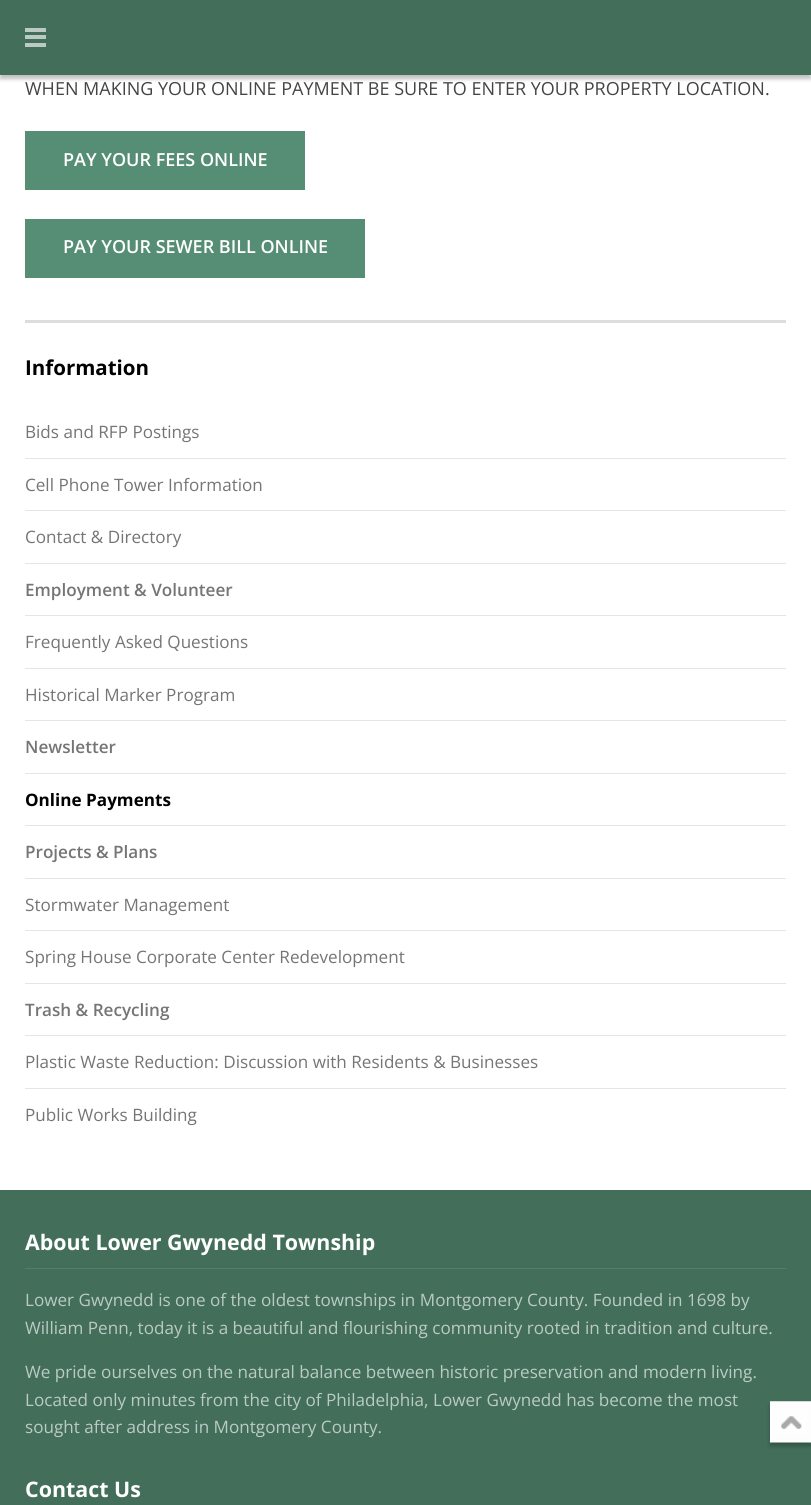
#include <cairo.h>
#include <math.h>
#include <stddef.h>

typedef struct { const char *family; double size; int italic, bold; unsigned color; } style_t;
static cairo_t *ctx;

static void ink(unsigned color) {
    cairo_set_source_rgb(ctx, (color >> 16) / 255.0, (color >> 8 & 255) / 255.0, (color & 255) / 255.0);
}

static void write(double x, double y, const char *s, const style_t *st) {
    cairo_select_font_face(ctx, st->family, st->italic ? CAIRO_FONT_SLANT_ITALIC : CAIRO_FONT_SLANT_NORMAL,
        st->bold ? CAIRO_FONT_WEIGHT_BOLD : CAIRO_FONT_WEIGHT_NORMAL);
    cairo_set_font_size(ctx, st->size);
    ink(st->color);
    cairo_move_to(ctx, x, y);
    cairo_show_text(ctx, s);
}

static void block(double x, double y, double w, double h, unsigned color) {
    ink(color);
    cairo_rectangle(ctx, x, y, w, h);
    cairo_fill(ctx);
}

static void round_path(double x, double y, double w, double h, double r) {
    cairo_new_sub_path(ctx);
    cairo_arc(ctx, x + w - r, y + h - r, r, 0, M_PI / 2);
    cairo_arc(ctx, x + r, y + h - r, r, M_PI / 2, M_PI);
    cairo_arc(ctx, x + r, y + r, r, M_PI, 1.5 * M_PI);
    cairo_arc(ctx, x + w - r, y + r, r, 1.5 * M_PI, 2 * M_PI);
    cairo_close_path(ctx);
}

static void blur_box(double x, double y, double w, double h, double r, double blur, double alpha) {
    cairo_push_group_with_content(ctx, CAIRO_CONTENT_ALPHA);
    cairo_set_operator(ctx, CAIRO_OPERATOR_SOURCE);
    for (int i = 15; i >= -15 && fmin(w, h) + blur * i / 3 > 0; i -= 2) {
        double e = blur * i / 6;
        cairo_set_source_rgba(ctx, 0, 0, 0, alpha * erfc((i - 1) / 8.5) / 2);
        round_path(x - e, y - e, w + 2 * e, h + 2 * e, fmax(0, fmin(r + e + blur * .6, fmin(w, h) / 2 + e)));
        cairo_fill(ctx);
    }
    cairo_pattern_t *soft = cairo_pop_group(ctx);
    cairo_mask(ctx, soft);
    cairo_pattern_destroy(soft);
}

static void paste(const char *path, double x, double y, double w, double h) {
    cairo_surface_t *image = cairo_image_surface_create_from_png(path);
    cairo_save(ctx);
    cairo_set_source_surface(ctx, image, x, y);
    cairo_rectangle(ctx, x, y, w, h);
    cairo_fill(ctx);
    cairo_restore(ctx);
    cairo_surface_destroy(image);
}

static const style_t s1 = {"Open Sans", 18, 0, 0, 0x444444};
static const style_t s2 = {"Open Sans SemiBold", 18, 0, 0, 0xffffff};
static const style_t s3 = {"Open Sans", 20.5, 0, 1, 0x000000};
static const style_t s4 = {"Open Sans", 17.1, 0, 0, 0x757575};
static const style_t s5 = {"Open Sans SemiBold", 17.1, 0, 0, 0x757575};
static const style_t s6 = {"Open Sans", 17.1, 0, 1, 0x000000};
static const style_t s7 = {"Open Sans", 21.4, 0, 1, 0xffffff};
static const style_t s8 = {"Open Sans", 17.1, 0, 0, 0xbbcbc4};

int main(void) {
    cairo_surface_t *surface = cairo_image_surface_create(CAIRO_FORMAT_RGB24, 811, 1505);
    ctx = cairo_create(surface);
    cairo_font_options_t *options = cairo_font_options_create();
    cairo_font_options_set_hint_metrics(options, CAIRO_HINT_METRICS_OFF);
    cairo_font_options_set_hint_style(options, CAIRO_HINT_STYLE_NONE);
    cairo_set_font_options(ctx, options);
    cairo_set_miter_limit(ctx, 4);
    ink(0x426e5a);
    cairo_paint(ctx);
    block(0, 75, 811, 1115, 0xffffff);
    ink(0x000000);
    blur_box(0, 4, 811, 75, 0, 2, 0.25);
    block(0, 1, 811, 74, 0x426e5a);
    block(25, 35, 21, 4, 0xbbcbc4);
    block(25, 28, 21, 4, 0xbbcbc4);
    block(25, 43, 21, 4, 0xbbcbc4);
    write(25, 95, "WHEN MAKING YOUR ONLINE PAYMENT BE SURE TO ENTER YOUR PROPERTY LOCATION.", &s1);
    block(25, 131, 280, 59, 0x558e74);
    write(63, 166, "PAY YOUR FEES ONLINE", &s2);
    block(25, 219, 340, 59, 0x558e74);
    write(63, 253, "PAY YOUR SEWER BILL ONLINE", &s2);
    block(25, 320, 761, 3, 0xdddddd);
    write(25, 375, "Information", &s3);
    write(25, 438, "Bids and RFP Postings", &s4);
    block(25, 458, 761, 1, 0xe5e5e5);
    write(25, 491, "Cell Phone Tower Information", &s4);
    block(25, 510, 761, 1, 0xe5e5e5);
    write(25, 543, "Contact & Directory", &s4);
    block(25, 563, 761, 1, 0xe5e5e5);
    write(25, 596, "Employment & Volunteer", &s5);
    block(25, 615, 761, 1, 0xe5e5e5);
    write(25, 648, "Frequently Asked Questions", &s4);
    block(25, 668, 761, 1, 0xe5e5e5);
    write(25, 701, "Historical Marker Program", &s4);
    block(25, 720, 761, 1, 0xe5e5e5);
    write(25, 753, "Newsletter", &s5);
    block(25, 773, 761, 1, 0xe5e5e5);
    write(25, 806, "Online Payments", &s6);
    block(25, 825, 761, 1, 0xe5e5e5);
    write(25, 858, "Projects & Plans", &s5);
    block(25, 878, 761, 1, 0xe5e5e5);
    write(25, 911, "Stormwater Management", &s4);
    block(25, 930, 761, 1, 0xe5e5e5);
    write(25, 963, "Spring House Corporate Center Redevelopment", &s4);
    block(25, 983, 761, 1, 0xe5e5e5);
    write(25, 1016, "Trash & Recycling", &s5);
    block(25, 1035, 761, 1, 0xe5e5e5);
    write(25, 1068, "Plastic Waste Reduction: Discussion with Residents & Businesses", &s4);
    block(25, 1088, 761, 1, 0xe5e5e5);
    write(25, 1121, "Public Works Building", &s4);
    block(25, 1268, 761, 1, 0x557d6b);
    write(25, 1250, "About Lower Gwynedd Township", &s7);
    write(25, 1306, "Lower Gwynedd is one of the oldest townships in Montgomery County. Founded in 1698 by", &s8);
    write(25, 1334, "William Penn, today it is a beautiful and flourishing community rooted in tradition and culture.", &s8);
    write(25, 1378, "We pride ourselves on the natural balance between historic preservation and modern living.", &s8);
    write(25, 1406, "Located only minutes from the city of Philadelphia, Lower Gwynedd has become the most", &s8);
    write(25, 1433, "sought after address in Montgomery County.", &s8);
    write(25, 1497, "Contact Us", &s7);
    ink(0x000000);
    blur_box(770, 1405, 41, 41, 0, 2, 0.25);
    paste("pic1.png", 770, 1401, 41, 42);
    cairo_surface_write_to_png(surface, "screenshot.png");
    cairo_font_options_destroy(options);
    cairo_destroy(ctx);
    cairo_surface_destroy(surface);
    return 0;
}
